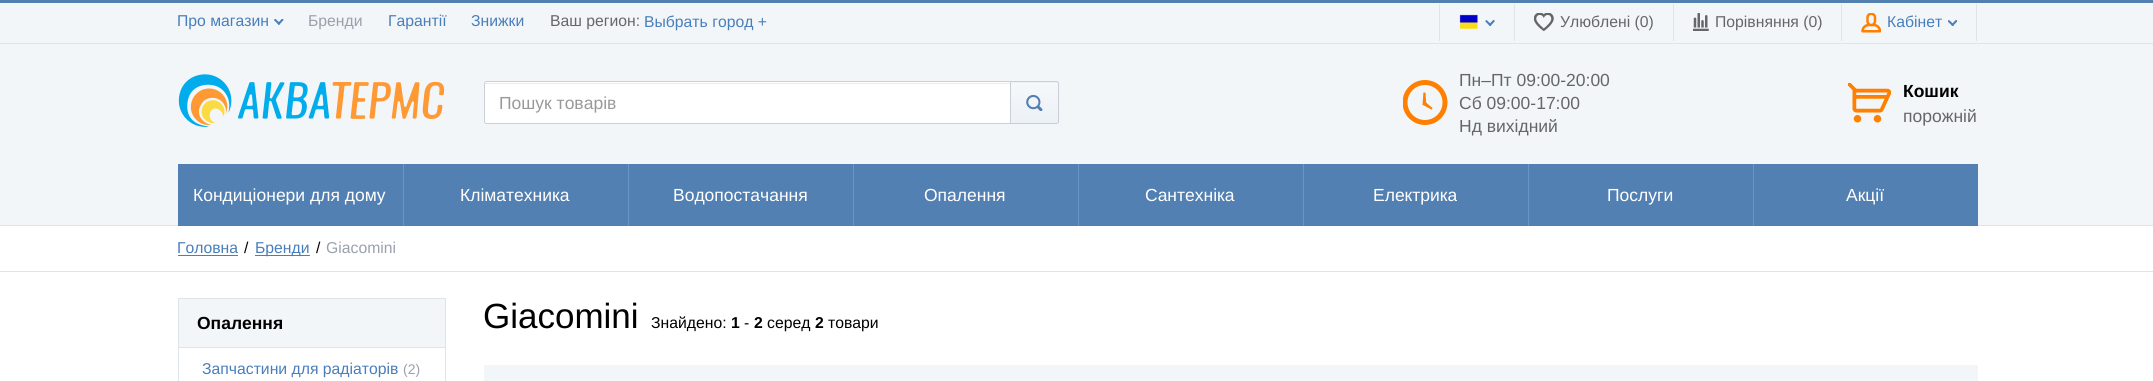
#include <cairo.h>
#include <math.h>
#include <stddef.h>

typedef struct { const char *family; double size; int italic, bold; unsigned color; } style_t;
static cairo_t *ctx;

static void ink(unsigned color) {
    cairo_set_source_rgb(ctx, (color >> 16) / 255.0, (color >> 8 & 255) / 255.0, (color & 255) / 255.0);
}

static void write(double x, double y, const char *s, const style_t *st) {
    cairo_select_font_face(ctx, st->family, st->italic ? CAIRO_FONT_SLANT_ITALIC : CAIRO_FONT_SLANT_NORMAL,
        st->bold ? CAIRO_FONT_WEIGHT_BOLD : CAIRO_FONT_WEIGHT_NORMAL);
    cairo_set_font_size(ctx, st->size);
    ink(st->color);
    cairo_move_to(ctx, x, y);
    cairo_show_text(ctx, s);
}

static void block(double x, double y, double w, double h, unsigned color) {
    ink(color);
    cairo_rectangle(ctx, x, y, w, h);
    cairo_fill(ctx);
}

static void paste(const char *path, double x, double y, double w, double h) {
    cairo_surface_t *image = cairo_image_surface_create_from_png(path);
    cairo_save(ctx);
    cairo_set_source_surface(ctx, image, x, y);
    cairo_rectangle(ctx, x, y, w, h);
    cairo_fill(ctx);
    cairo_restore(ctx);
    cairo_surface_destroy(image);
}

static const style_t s1 = {"Liberation Sans", 15.75, 0, 0, 0x487ebb};
static const style_t s2 = {"Liberation Sans", 15.75, 0, 0, 0x9aa1ab};
static const style_t s3 = {"Liberation Sans", 15.75, 0, 0, 0x666666};
static const style_t s4 = {"Liberation Sans", 17.5, 0, 0, 0x999999};
static const style_t s5 = {"Liberation Sans", 17.5, 0, 0, 0x666666};
static const style_t s6 = {"Liberation Sans", 17.5, 0, 1, 0x000000};
static const style_t s7 = {"Liberation Sans", 17.5, 0, 0, 0xffffff};
static const style_t s8 = {"Liberation Sans", 15.75, 0, 0, 0x000000};
static const style_t s9 = {"Liberation Sans", 14, 0, 0, 0x9aa1ab};
static const style_t s10 = {"Liberation Sans", 35, 0, 0, 0x000000};
static const style_t s11 = {"Liberation Sans", 15.75, 0, 1, 0x000000};

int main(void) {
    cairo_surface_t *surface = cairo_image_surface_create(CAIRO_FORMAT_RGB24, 2153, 381);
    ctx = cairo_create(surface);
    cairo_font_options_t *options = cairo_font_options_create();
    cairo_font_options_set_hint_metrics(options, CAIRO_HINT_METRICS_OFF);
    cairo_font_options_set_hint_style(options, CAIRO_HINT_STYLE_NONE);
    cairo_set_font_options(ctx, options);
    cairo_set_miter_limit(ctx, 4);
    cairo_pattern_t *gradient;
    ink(0xffffff);
    cairo_paint(ctx);
    block(0, 3, 2153, 222, 0xf2f6f9);
    block(0, 225, 2153, 1, 0xdfe4eb);
    block(0, 0, 2153, 3, 0x5280b2);
    block(0, 43, 2153, 1, 0xdfe4eb);
    write(177, 26, "Про магазин", &s1);
    paste("pic1.png", 274, 19, 10, 6);
    write(308, 26, "Бренди", &s2);
    write(388, 26, "Гарантії", &s1);
    write(471, 26, "Знижки", &s1);
    write(550, 26, "Ваш регион:", &s3);
    write(644, 27, "Выбрать город +", &s1);
    block(1514, 4, 1, 37, 0xdfe4eb);
    block(1439, 4, 1, 37, 0xdfe4eb);
    paste("pic2.png", 1459, 14, 19, 15);
    paste("pic3.png", 1485, 20, 10, 6);
    block(1673, 4, 1, 37, 0xdfe4eb);
    paste("pic4.png", 1534, 13, 20, 18);
    write(1560, 27, "Улюблені (0)", &s3);
    block(1841, 4, 1, 37, 0xdfe4eb);
    paste("pic5.png", 1693, 13, 16, 18);
    write(1715, 27, "Порівняння (0)", &s3);
    block(1976, 4, 1, 37, 0xdfe4eb);
    paste("pic6.png", 1861, 13, 20, 20);
    write(1887, 27, "Кабінет", &s1);
    paste("pic7.png", 1948, 20, 10, 6);
    paste("pic8.png", 178, 74, 267, 53);
    ink(0xffffff);
    cairo_new_path(ctx);
    cairo_move_to(ctx, 486.5, 81);
    cairo_line_to(ctx, 1011, 81);
    cairo_line_to(ctx, 1011, 124);
    cairo_line_to(ctx, 486.5, 124);
    cairo_curve_to(ctx, 485, 124, 484, 123, 484, 121.5);
    cairo_line_to(ctx, 484, 83.5);
    cairo_curve_to(ctx, 484, 82, 485, 81, 486.5, 81);
    cairo_close_path(ctx);
    cairo_fill(ctx);
    ink(0xececec);
    cairo_new_path(ctx);
    cairo_move_to(ctx, 486, 84);
    cairo_line_to(ctx, 1010, 84);
    cairo_line_to(ctx, 1010, 83);
    cairo_line_to(ctx, 486, 83);
    cairo_line_to(ctx, 485, 84);
    cairo_line_to(ctx, 485, 85);
    cairo_close_path(ctx);
    cairo_fill(ctx);
    cairo_new_path(ctx);
    cairo_move_to(ctx, 486.5, 81.5);
    cairo_line_to(ctx, 1010.5, 81.5);
    cairo_line_to(ctx, 1010.5, 123.5);
    cairo_line_to(ctx, 486.5, 123.5);
    cairo_curve_to(ctx, 485.5, 123.5, 484.5, 122.5, 484.5, 121.5);
    cairo_line_to(ctx, 484.5, 83.5);
    cairo_curve_to(ctx, 484.5, 82.5, 485.5, 81.5, 486.5, 81.5);
    cairo_close_path(ctx);
    ink(0xc8cfd9);
    cairo_set_line_width(ctx, 1);
    cairo_stroke(ctx);
    write(499, 109, "Пошук товарів", &s4);
    cairo_save(ctx);
    cairo_new_path(ctx);
    cairo_move_to(ctx, 1010, 81);
    cairo_line_to(ctx, 1056.5, 81);
    cairo_curve_to(ctx, 1058, 81, 1059, 82, 1059, 83.5);
    cairo_line_to(ctx, 1059, 121.5);
    cairo_curve_to(ctx, 1059, 123, 1058, 124, 1056.5, 124);
    cairo_line_to(ctx, 1010, 124);
    cairo_close_path(ctx);
    cairo_clip(ctx);
    gradient = cairo_pattern_create_linear(1034, 43, 1034, 83);
    cairo_pattern_add_color_stop_rgba(gradient, 0, 0.961, 0.973, 0.984, 1);
    cairo_pattern_add_color_stop_rgba(gradient, 1, 0.925, 0.945, 0.965, 1);
    cairo_set_source(ctx, gradient);
    cairo_pattern_destroy(gradient);
    cairo_rectangle(ctx, 1010, 81, 49, 2);
    cairo_fill(ctx);
    cairo_restore(ctx);
    gradient = cairo_pattern_create_linear(1034, 83, 1034, 123);
    cairo_pattern_add_color_stop_rgba(gradient, 0, 0.961, 0.973, 0.984, 1);
    cairo_pattern_add_color_stop_rgba(gradient, 1, 0.925, 0.945, 0.965, 1);
    cairo_set_source(ctx, gradient);
    cairo_pattern_destroy(gradient);
    cairo_rectangle(ctx, 1011, 83, 48, 40);
    cairo_fill(ctx);
    cairo_new_path(ctx);
    cairo_move_to(ctx, 1010.5, 81.5);
    cairo_line_to(ctx, 1056.5, 81.5);
    cairo_curve_to(ctx, 1057.5, 81.5, 1058.5, 82.5, 1058.5, 83.5);
    cairo_line_to(ctx, 1058.5, 121.5);
    cairo_curve_to(ctx, 1058.5, 122.5, 1057.5, 123.5, 1056.5, 123.5);
    cairo_line_to(ctx, 1010.5, 123.5);
    cairo_close_path(ctx);
    ink(0xc8cfd9);
    cairo_stroke(ctx);
    paste("pic9.png", 1026, 95, 17, 16);
    paste("pic10.png", 1403, 80, 45, 45);
    write(1459, 86, "Пн–Пт 09:00-20:00", &s5);
    write(1459, 109, "Сб 09:00-17:00", &s5);
    write(1459, 132, "Нд вихідний", &s5);
    paste("pic11.png", 1848, 83, 43, 40);
    write(1903, 97, "Кошик", &s6);
    write(1903, 122, "порожній", &s5);
    block(178, 164, 225, 62, 0x5280b2);
    write(193, 201, "Кондиціонери для дому", &s7);
    block(404, 164, 224, 62, 0x5280b2);
    block(403, 164, 1, 62, 0x6996c7);
    write(460, 201, "Кліматехника", &s7);
    block(629, 164, 224, 62, 0x5280b2);
    block(628, 164, 1, 62, 0x6996c7);
    write(673, 201, "Водопостачання", &s7);
    block(854, 164, 224, 62, 0x5280b2);
    block(853, 164, 1, 62, 0x6996c7);
    write(924, 201, "Опалення", &s7);
    block(1079, 164, 224, 62, 0x5280b2);
    block(1078, 164, 1, 62, 0x6996c7);
    write(1145, 201, "Сантехніка", &s7);
    block(1304, 164, 224, 62, 0x5280b2);
    block(1303, 164, 1, 62, 0x6996c7);
    write(1373, 201, "Електрика", &s7);
    block(1529, 164, 224, 62, 0x5280b2);
    block(1528, 164, 1, 62, 0x6996c7);
    write(1607, 201, "Послуги", &s7);
    block(1754, 164, 224, 62, 0x5280b2);
    block(1753, 164, 1, 62, 0x6996c7);
    write(1846, 201, "Акції", &s7);
    block(0, 271, 2153, 1, 0xdfe4eb);
    write(177, 253, "Головна", &s1);
    block(178, 255, 60, 1, 0x487ebb);
    write(244, 253, "/", &s8);
    block(255, 255, 55, 1, 0x487ebb);
    write(255, 253, "Бренди", &s1);
    write(316, 253, "/", &s8);
    write(326, 253, "Giacomini", &s2);
    ink(0xf2f6f9);
    cairo_rectangle(ctx, 178.5, 298.5, 267, 49);
    cairo_fill_preserve(ctx);
    ink(0xdfe4eb);
    cairo_stroke(ctx);
    write(197, 329, "Опалення", &s6);
    block(445, 348, 1, 33, 0xdfe4eb);
    block(178, 348, 1, 33, 0xdfe4eb);
    write(202, 374, "Запчастини для радіаторів", &s1);
    write(403, 374, "(2)", &s9);
    write(483, 328, "Giacomini", &s10);
    write(651, 328, "Знайдено:", &s8);
    write(731, 328, "1", &s11);
    write(744, 328, "-", &s8);
    write(754, 328, "2", &s11);
    write(767, 328, "серед", &s8);
    write(815, 328, "2", &s11);
    write(828, 328, "товари", &s8);
    block(484, 365, 1494, 16, 0xf2f6f9);
    cairo_surface_write_to_png(surface, "screenshot.png");
    cairo_font_options_destroy(options);
    cairo_destroy(ctx);
    cairo_surface_destroy(surface);
    return 0;
}
